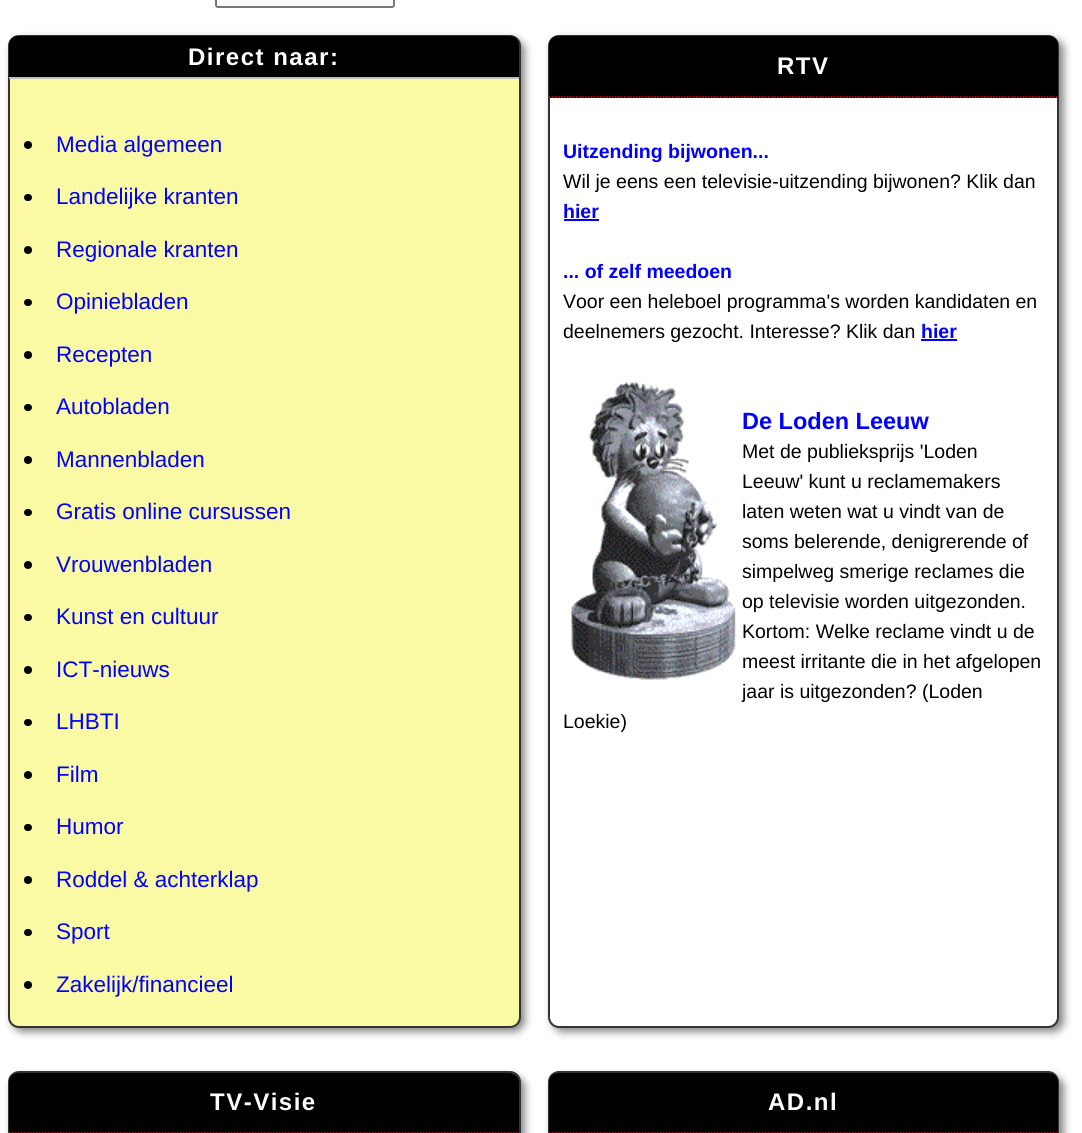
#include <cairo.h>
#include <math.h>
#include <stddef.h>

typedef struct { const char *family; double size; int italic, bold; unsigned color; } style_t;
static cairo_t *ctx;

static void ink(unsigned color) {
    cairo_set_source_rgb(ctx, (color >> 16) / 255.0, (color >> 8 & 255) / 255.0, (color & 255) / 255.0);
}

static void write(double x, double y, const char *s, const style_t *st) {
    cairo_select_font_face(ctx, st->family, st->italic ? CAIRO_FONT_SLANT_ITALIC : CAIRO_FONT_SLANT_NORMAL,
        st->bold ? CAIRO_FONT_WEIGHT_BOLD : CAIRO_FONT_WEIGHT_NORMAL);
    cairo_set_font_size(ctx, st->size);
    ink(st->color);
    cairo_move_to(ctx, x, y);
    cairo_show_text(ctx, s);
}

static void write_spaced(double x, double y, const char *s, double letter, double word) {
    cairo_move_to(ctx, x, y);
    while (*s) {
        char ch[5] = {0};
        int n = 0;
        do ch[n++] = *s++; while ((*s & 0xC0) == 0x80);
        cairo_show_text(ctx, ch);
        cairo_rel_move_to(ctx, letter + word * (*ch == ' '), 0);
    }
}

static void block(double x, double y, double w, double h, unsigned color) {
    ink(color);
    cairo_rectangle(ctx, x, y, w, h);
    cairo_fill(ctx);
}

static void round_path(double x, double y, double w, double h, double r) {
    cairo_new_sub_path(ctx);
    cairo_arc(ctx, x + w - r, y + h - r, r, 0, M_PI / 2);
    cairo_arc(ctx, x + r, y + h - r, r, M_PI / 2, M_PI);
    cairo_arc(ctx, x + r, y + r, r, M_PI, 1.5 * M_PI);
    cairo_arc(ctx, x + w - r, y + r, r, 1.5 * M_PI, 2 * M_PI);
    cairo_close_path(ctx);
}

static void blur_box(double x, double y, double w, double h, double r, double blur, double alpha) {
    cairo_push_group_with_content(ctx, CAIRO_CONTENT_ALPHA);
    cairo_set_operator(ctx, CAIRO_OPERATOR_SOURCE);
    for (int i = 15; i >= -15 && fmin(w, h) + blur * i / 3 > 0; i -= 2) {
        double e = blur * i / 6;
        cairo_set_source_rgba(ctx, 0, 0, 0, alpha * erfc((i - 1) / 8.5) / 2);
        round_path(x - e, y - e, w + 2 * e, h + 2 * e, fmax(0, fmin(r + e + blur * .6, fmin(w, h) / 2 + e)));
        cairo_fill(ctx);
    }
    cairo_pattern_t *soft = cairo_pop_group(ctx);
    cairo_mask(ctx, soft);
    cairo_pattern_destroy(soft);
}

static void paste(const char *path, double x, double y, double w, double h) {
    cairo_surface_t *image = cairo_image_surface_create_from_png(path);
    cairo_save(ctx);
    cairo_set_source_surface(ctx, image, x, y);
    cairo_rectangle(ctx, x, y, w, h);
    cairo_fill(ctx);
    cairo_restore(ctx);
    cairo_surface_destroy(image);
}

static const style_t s1 = {"Liberation Sans", 22.5, 0, 0, 0x0000ff};
static const style_t s2 = {"Liberation Sans", 19.5, 0, 1, 0x0000ff};
static const style_t s3 = {"Liberation Sans", 19.5, 0, 0, 0x000000};
static const style_t s4 = {"Liberation Sans", 23.5, 0, 1, 0x0000ff};

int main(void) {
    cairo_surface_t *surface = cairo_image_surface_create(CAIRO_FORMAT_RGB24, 1082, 1133);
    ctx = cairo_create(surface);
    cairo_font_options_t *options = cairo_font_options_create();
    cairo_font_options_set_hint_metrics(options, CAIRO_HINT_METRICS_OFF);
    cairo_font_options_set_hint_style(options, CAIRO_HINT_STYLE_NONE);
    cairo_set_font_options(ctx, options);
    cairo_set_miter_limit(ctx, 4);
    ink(0xffffff);
    cairo_paint(ctx);
    ink(0xf9f9f9);
    round_path(216, -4, 178, 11, 2);
    cairo_fill_preserve(ctx);
    ink(0x767676);
    cairo_stroke(ctx);
    ink(0x888888);
    blur_box(12, 39, 513, 993, 11, 4, 1);
    ink(0xfafaa5);
    round_path(9, 36, 511, 991, 10);
    cairo_fill_preserve(ctx);
    ink(0x333333);
    cairo_stroke(ctx);
    ink(0x000000);
    cairo_new_path(ctx);
    cairo_move_to(ctx, 18, 36);
    cairo_line_to(ctx, 510, 36);
    cairo_curve_to(ctx, 515, 36, 519, 40, 519, 45);
    cairo_line_to(ctx, 519, 78);
    cairo_line_to(ctx, 9, 78);
    cairo_line_to(ctx, 9, 45);
    cairo_curve_to(ctx, 9, 40, 13, 36, 18, 36);
    cairo_close_path(ctx);
    cairo_fill(ctx);
    block(9, 77, 510, 2, 0xc0c0c0);
    cairo_select_font_face(ctx, "Liberation Sans", CAIRO_FONT_SLANT_NORMAL, CAIRO_FONT_WEIGHT_BOLD);
    cairo_set_font_size(ctx, 24);
    ink(0xffffff);
    write_spaced(188, 65, "Direct naar:", 1.5, 0);
    ink(0x000000);
    cairo_new_path(ctx);
    cairo_arc(ctx, 28, 145, 4, 0, 2 * M_PI);
    cairo_fill(ctx);
    write(56, 152, "Media algemeen", &s1);
    ink(0x000000);
    round_path(24, 194, 8, 7, 3.5);
    cairo_fill(ctx);
    write(56, 204, "Landelijke kranten", &s1);
    ink(0x000000);
    cairo_new_path(ctx);
    cairo_arc(ctx, 28, 250, 4, 0, 2 * M_PI);
    cairo_fill(ctx);
    write(56, 257, "Regionale kranten", &s1);
    ink(0x000000);
    round_path(24, 299, 8, 7, 3.5);
    cairo_fill(ctx);
    write(56, 309, "Opiniebladen", &s1);
    ink(0x000000);
    cairo_new_path(ctx);
    cairo_arc(ctx, 28, 355, 4, 0, 2 * M_PI);
    cairo_fill(ctx);
    write(56, 362, "Recepten", &s1);
    ink(0x000000);
    round_path(24, 404, 8, 7, 3.5);
    cairo_fill(ctx);
    write(56, 414, "Autobladen", &s1);
    ink(0x000000);
    cairo_new_path(ctx);
    cairo_arc(ctx, 28, 460, 4, 0, 2 * M_PI);
    cairo_fill(ctx);
    write(56, 467, "Mannenbladen", &s1);
    ink(0x000000);
    round_path(24, 509, 8, 7, 3.5);
    cairo_fill(ctx);
    write(56, 519, "Gratis online cursussen", &s1);
    ink(0x000000);
    cairo_new_path(ctx);
    cairo_arc(ctx, 28, 565, 4, 0, 2 * M_PI);
    cairo_fill(ctx);
    write(56, 572, "Vrouwenbladen", &s1);
    ink(0x000000);
    round_path(24, 614, 8, 7, 3.5);
    cairo_fill(ctx);
    write(56, 624, "Kunst en cultuur", &s1);
    ink(0x000000);
    cairo_new_path(ctx);
    cairo_arc(ctx, 28, 670, 4, 0, 2 * M_PI);
    cairo_fill(ctx);
    write(56, 677, "ICT-nieuws", &s1);
    ink(0x000000);
    round_path(24, 719, 8, 7, 3.5);
    cairo_fill(ctx);
    write(56, 729, "LHBTI", &s1);
    ink(0x000000);
    cairo_new_path(ctx);
    cairo_arc(ctx, 28, 775, 4, 0, 2 * M_PI);
    cairo_fill(ctx);
    write(56, 782, "Film", &s1);
    ink(0x000000);
    round_path(24, 824, 8, 7, 3.5);
    cairo_fill(ctx);
    write(56, 834, "Humor", &s1);
    ink(0x000000);
    cairo_new_path(ctx);
    cairo_arc(ctx, 28, 880, 4, 0, 2 * M_PI);
    cairo_fill(ctx);
    write(56, 887, "Roddel & achterklap", &s1);
    ink(0x000000);
    round_path(24, 929, 8, 7, 3.5);
    cairo_fill(ctx);
    write(56, 939, "Sport", &s1);
    ink(0x000000);
    cairo_new_path(ctx);
    cairo_arc(ctx, 28, 985, 4, 0, 2 * M_PI);
    cairo_fill(ctx);
    write(56, 992, "Zakelijk/financieel", &s1);
    ink(0x888888);
    blur_box(552, 39, 512, 993, 11, 4, 1);
    ink(0xffffff);
    round_path(549, 36, 509, 991, 10);
    cairo_fill_preserve(ctx);
    ink(0x333333);
    cairo_stroke(ctx);
    ink(0x000000);
    cairo_new_path(ctx);
    cairo_move_to(ctx, 558, 36);
    cairo_line_to(ctx, 1049, 36);
    cairo_curve_to(ctx, 1054, 36, 1058, 40, 1058, 45);
    cairo_line_to(ctx, 1058, 98);
    cairo_line_to(ctx, 549, 98);
    cairo_line_to(ctx, 549, 45);
    cairo_curve_to(ctx, 549, 40, 553, 36, 558, 36);
    cairo_close_path(ctx);
    cairo_fill(ctx);
    cairo_new_path(ctx);
    cairo_move_to(ctx, 549, 97);
    cairo_line_to(ctx, 1057.5, 97);
    ink(0xff0000);
    cairo_set_line_width(ctx, 1.5);
    cairo_set_dash(ctx, (double[]){1.5, 1.5}, 2, 0);
    cairo_stroke(ctx);
    cairo_select_font_face(ctx, "Liberation Sans", CAIRO_FONT_SLANT_NORMAL, CAIRO_FONT_WEIGHT_BOLD);
    cairo_set_font_size(ctx, 24);
    ink(0xffffff);
    write_spaced(777, 74, "RTV", 1.5, 0);
    write(563, 158, "Uitzending bijwonen...", &s2);
    write(563, 188, "Wil je eens een televisie-uitzending bijwonen? Klik dan", &s3);
    write(563, 218, "hier", &s2);
    block(564, 219, 35, 2, 0x0000ff);
    write(563, 278, "... of zelf meedoen", &s2);
    write(563, 308, "Voor een heleboel programma's worden kandidaten en", &s3);
    write(563, 338, "deelnemers gezocht. Interesse? Klik dan", &s3);
    write(921, 338, "hier", &s2);
    block(921, 339, 36, 2, 0x0000ff);
    paste("pic1.png", 571, 382, 165, 298);
    write(742, 429, "De Loden Leeuw", &s4);
    write(742, 458, "Met de publieksprijs 'Loden", &s3);
    write(742, 488, "Leeuw' kunt u reclamemakers", &s3);
    write(742, 518, "laten weten wat u vindt van de", &s3);
    write(742, 548, "soms belerende, denigrerende of", &s3);
    write(742, 578, "simpelweg smerige reclames die", &s3);
    write(742, 608, "op televisie worden uitgezonden.", &s3);
    write(742, 638, "Kortom: Welke reclame vindt u de", &s3);
    write(742, 668, "meest irritante die in het afgelopen", &s3);
    write(742, 698, "jaar is uitgezonden? (Loden", &s3);
    write(563, 728, "Loekie)", &s3);
    ink(0x888888);
    blur_box(12, 1076, 513, 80, 11, 4, 1);
    round_path(9, 1072, 511, 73, 10);
    ink(0x333333);
    cairo_set_line_width(ctx, 2);
    cairo_set_dash(ctx, NULL, 0, 0);
    cairo_stroke(ctx);
    ink(0x000000);
    cairo_new_path(ctx);
    cairo_move_to(ctx, 18, 1073);
    cairo_line_to(ctx, 510, 1073);
    cairo_curve_to(ctx, 515, 1073, 519, 1077, 519, 1082);
    cairo_line_to(ctx, 519, 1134);
    cairo_line_to(ctx, 9, 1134);
    cairo_line_to(ctx, 9, 1082);
    cairo_curve_to(ctx, 9, 1077, 13, 1073, 18, 1073);
    cairo_close_path(ctx);
    cairo_fill(ctx);
    cairo_new_path(ctx);
    cairo_move_to(ctx, 9, 1133);
    cairo_line_to(ctx, 519, 1133);
    ink(0xff0000);
    cairo_set_line_width(ctx, 1.5);
    cairo_set_dash(ctx, (double[]){1.5, 1.5}, 2, 0);
    cairo_stroke(ctx);
    cairo_select_font_face(ctx, "Liberation Sans", CAIRO_FONT_SLANT_NORMAL, CAIRO_FONT_WEIGHT_BOLD);
    cairo_set_font_size(ctx, 24);
    ink(0xffffff);
    write_spaced(210, 1110, "TV-Visie", 1.5, 0);
    ink(0x888888);
    blur_box(552, 1076, 512, 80, 11, 4, 1);
    round_path(549, 1072, 509, 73, 10);
    ink(0x333333);
    cairo_set_line_width(ctx, 2);
    cairo_set_dash(ctx, NULL, 0, 0);
    cairo_stroke(ctx);
    ink(0x000000);
    cairo_new_path(ctx);
    cairo_move_to(ctx, 558, 1073);
    cairo_line_to(ctx, 1049, 1073);
    cairo_curve_to(ctx, 1054, 1073, 1058, 1077, 1058, 1082);
    cairo_line_to(ctx, 1058, 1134);
    cairo_line_to(ctx, 549, 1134);
    cairo_line_to(ctx, 549, 1082);
    cairo_curve_to(ctx, 549, 1077, 553, 1073, 558, 1073);
    cairo_close_path(ctx);
    cairo_fill(ctx);
    cairo_new_path(ctx);
    cairo_move_to(ctx, 549, 1133);
    cairo_line_to(ctx, 1057.5, 1133);
    ink(0xff0000);
    cairo_set_line_width(ctx, 1.5);
    cairo_set_dash(ctx, (double[]){1.5, 1.5}, 2, 0);
    cairo_stroke(ctx);
    ink(0xffffff);
    write_spaced(768, 1110, "AD.nl", 1.5, 0);
    cairo_surface_write_to_png(surface, "screenshot.png");
    cairo_font_options_destroy(options);
    cairo_destroy(ctx);
    cairo_surface_destroy(surface);
    return 0;
}
